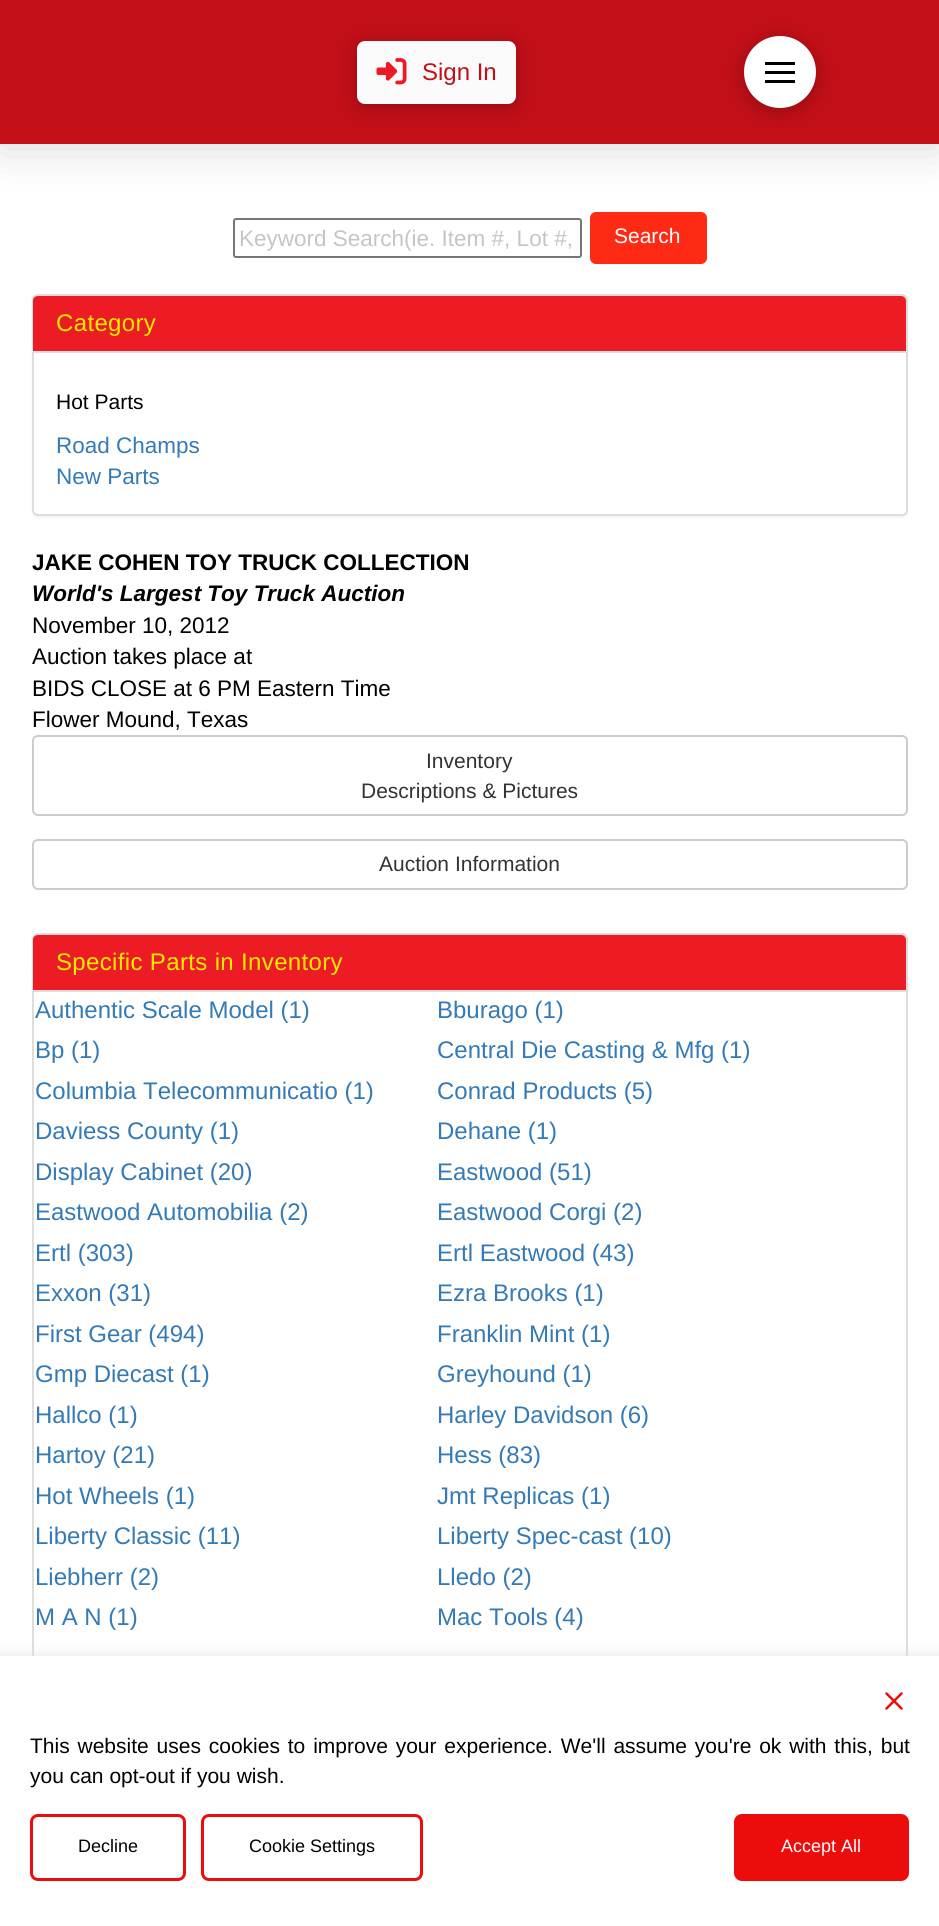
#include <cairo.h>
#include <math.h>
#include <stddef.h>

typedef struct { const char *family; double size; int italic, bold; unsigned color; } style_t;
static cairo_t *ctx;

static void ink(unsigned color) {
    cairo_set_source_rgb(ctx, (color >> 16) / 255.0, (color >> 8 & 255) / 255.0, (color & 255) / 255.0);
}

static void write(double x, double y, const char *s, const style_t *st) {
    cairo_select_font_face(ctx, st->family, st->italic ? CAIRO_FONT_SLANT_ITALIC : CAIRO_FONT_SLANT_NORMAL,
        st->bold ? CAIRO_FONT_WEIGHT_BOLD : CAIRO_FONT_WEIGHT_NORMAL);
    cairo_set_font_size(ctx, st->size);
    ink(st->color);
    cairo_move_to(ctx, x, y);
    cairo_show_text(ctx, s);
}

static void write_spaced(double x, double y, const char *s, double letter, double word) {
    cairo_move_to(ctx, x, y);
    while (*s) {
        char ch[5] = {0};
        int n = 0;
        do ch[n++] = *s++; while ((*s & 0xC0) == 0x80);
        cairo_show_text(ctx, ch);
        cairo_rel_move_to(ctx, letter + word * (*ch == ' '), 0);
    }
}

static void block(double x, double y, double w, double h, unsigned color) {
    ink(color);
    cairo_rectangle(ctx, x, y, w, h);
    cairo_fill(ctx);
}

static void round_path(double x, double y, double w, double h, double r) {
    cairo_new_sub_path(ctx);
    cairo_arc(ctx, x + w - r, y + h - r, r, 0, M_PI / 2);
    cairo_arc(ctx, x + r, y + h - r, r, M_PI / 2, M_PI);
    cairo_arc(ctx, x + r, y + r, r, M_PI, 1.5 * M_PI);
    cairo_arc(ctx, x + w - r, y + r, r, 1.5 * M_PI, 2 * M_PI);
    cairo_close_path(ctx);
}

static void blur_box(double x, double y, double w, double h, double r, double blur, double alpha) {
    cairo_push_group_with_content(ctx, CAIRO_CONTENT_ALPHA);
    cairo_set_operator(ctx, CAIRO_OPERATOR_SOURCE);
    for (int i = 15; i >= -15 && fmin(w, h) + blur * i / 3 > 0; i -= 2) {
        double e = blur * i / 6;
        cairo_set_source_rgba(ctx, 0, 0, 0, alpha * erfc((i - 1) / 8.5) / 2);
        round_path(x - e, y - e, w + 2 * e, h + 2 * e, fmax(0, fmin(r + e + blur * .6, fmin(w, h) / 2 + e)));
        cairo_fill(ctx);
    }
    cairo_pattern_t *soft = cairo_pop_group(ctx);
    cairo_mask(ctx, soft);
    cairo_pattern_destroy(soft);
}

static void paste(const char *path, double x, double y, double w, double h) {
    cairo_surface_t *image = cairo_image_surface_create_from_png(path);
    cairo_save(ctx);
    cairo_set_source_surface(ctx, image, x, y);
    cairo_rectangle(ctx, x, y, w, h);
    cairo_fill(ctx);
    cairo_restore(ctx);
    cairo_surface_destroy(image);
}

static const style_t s1 = {"Liberation Sans", 24, 0, 0, 0xc20f18};
static const style_t s2 = {"Liberation Sans", 22.5, 0, 0, 0xc5c5c5};
static const style_t s3 = {"Liberation Sans", 21, 0, 0, 0xffffff};
static const style_t s4 = {"Liberation Sans", 21, 0, 0, 0x000000};
static const style_t s5 = {"Liberation Sans", 22.5, 0, 0, 0x337ab7};
static const style_t s6 = {"Liberation Sans", 22.5, 0, 1, 0x000000};
static const style_t s7 = {"Liberation Sans", 22.5, 1, 1, 0x000000};
static const style_t s8 = {"Liberation Sans", 22.5, 0, 0, 0x000000};
static const style_t s9 = {"Liberation Sans", 21, 0, 0, 0x333333};
static const style_t s10 = {"Liberation Sans", 24, 0, 0, 0x337ab7};
static const style_t s11 = {"Liberation Sans", 18, 0, 0, 0x000000};
static const style_t s12 = {"Liberation Sans", 18, 0, 0, 0xffffff};

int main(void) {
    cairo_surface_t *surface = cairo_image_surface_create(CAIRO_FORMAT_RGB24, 939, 1926);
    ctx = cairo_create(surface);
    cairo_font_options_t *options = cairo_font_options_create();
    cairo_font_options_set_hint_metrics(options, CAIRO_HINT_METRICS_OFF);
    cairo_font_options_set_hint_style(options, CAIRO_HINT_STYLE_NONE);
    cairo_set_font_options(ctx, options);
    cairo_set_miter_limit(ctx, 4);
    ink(0xffffff);
    cairo_paint(ctx);
    round_path(234, 219, 347, 38, 2);
    ink(0x767676);
    cairo_stroke(ctx);
    ink(0xff2a13);
    round_path(590, 212, 117, 52, 6);
    cairo_fill(ctx);
    ink(0x000000);
    blur_box(0, 3, 939, 144, 0, 24, 0.15);
    block(0, 0, 939, 144, 0xc20f18);
    ink(0x000000);
    blur_box(357, 44, 159, 63, 8, 8, 0.25);
    ink(0xfafafa);
    round_path(357, 41, 159, 63, 8);
    cairo_fill(ctx);
    paste("pic1.png", 376, 58, 31, 27);
    write(422, 80, "Sign In", &s1);
    ink(0x000000);
    blur_box(744, 39, 72, 72, 36, 8, 0.25);
    ink(0xffffff);
    cairo_arc(ctx, 780, 72, 36, 0, 2 * M_PI);
    cairo_fill(ctx);
    block(765, 62, 30, 3, 0x000000);
    block(765, 71, 30, 3, 0x000000);
    block(765, 80, 30, 3, 0x000000);
    write(239, 246, "Keyword Search(ie. Item #, Lot #,", &s2);
    write(614, 243, "Search", &s3);
    ink(0x000000);
    blur_box(32, 296, 876, 222, 6, 1, 0.05);
    ink(0xffffff);
    round_path(33, 295, 874, 220, 5);
    cairo_fill_preserve(ctx);
    ink(0xdddddd);
    cairo_stroke(ctx);
    ink(0xed1b24);
    cairo_new_path(ctx);
    cairo_move_to(ctx, 38, 296);
    cairo_line_to(ctx, 901, 296);
    cairo_curve_to(ctx, 904, 296, 906, 298, 906, 301);
    cairo_line_to(ctx, 906, 353);
    cairo_line_to(ctx, 33, 353);
    cairo_line_to(ctx, 33, 301);
    cairo_curve_to(ctx, 33, 298, 35, 296, 38, 296);
    cairo_close_path(ctx);
    cairo_fill(ctx);
    block(33, 351, 873, 2, 0xdddddd);
    cairo_set_font_size(ctx, 24);
    ink(0xfcec00);
    write_spaced(56, 331, "Category", 0.35, 0);
    write(56, 409, "Hot Parts", &s4);
    write(56, 453, "Road Champs", &s5);
    write(56, 484, "New Parts", &s5);
    write(32, 570, "JAKE COHEN TOY TRUCK COLLECTION", &s6);
    write(32, 601, "World's Largest Toy Truck Auction", &s7);
    write(32, 633, "November 10, 2012", &s8);
    write(32, 664, "Auction takes place at", &s8);
    write(32, 696, "BIDS CLOSE at 6 PM Eastern Time", &s8);
    write(32, 727, "Flower Mound, Texas", &s8);
    round_path(33, 736, 874, 79, 5);
    ink(0xcccccc);
    cairo_stroke(ctx);
    write(426, 768, "Inventory", &s9);
    write(361, 798, "Descriptions & Pictures", &s9);
    round_path(33, 840, 874, 49, 5);
    ink(0xcccccc);
    cairo_stroke(ctx);
    write(379, 871, "Auction Information", &s9);
    round_path(33, 934, 874, 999, 5);
    ink(0xdddddd);
    cairo_stroke(ctx);
    ink(0xed1b24);
    cairo_new_path(ctx);
    cairo_move_to(ctx, 38, 935);
    cairo_line_to(ctx, 901, 935);
    cairo_curve_to(ctx, 904, 935, 906, 937, 906, 940);
    cairo_line_to(ctx, 906, 992);
    cairo_line_to(ctx, 33, 992);
    cairo_line_to(ctx, 33, 940);
    cairo_curve_to(ctx, 33, 937, 35, 935, 38, 935);
    cairo_close_path(ctx);
    cairo_fill(ctx);
    block(33, 990, 873, 2, 0xdddddd);
    cairo_set_font_size(ctx, 24);
    ink(0xfcec00);
    write_spaced(56, 970, "Specific Parts in Inventory", 0.35, 0);
    write(35, 1018, "Authentic Scale Model (1)", &s10);
    write(437, 1018, "Bburago (1)", &s10);
    write(35, 1058, "Bp (1)", &s10);
    write(437, 1058, "Central Die Casting & Mfg (1)", &s10);
    write(35, 1099, "Columbia Telecommunicatio (1)", &s10);
    write(437, 1099, "Conrad Products (5)", &s10);
    write(35, 1139, "Daviess County (1)", &s10);
    write(437, 1139, "Dehane (1)", &s10);
    write(35, 1180, "Display Cabinet (20)", &s10);
    write(437, 1180, "Eastwood (51)", &s10);
    write(35, 1220, "Eastwood Automobilia (2)", &s10);
    write(437, 1220, "Eastwood Corgi (2)", &s10);
    write(35, 1261, "Ertl (303)", &s10);
    write(437, 1261, "Ertl Eastwood (43)", &s10);
    write(35, 1301, "Exxon (31)", &s10);
    write(437, 1301, "Ezra Brooks (1)", &s10);
    write(35, 1342, "First Gear (494)", &s10);
    write(437, 1342, "Franklin Mint (1)", &s10);
    write(35, 1382, "Gmp Diecast (1)", &s10);
    write(437, 1382, "Greyhound (1)", &s10);
    write(35, 1423, "Hallco (1)", &s10);
    write(437, 1423, "Harley Davidson (6)", &s10);
    write(35, 1463, "Hartoy (21)", &s10);
    write(437, 1463, "Hess (83)", &s10);
    write(35, 1504, "Hot Wheels (1)", &s10);
    write(437, 1504, "Jmt Replicas (1)", &s10);
    write(35, 1544, "Liberty Classic (11)", &s10);
    write(437, 1544, "Liberty Spec-cast (10)", &s10);
    write(35, 1585, "Liebherr (2)", &s10);
    write(437, 1585, "Lledo (2)", &s10);
    write(35, 1625, "M A N (1)", &s10);
    write(437, 1625, "Mac Tools (4)", &s10);
    ink(0xdddddd);
    blur_box(-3, 1658, 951, 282, 0, 8, 1);
    block(0, 1656, 939, 270, 0xffffff);
    paste("pic2.png", 885, 1692, 18, 18);
    cairo_set_font_size(ctx, 21);
    ink(0x000000);
    write_spaced(30, 1753, "This website uses cookies to improve your experience. We'll assume you're ok with this, but", 0, 2);
    write(30, 1783, "you can opt-out if you wish.", &s4);
    round_path(31.5, 1815.5, 153, 64, 6.5);
    ink(0xed0c0c);
    cairo_set_line_width(ctx, 3);
    cairo_stroke(ctx);
    write(78, 1852, "Decline", &s11);
    round_path(202.5, 1815.5, 219, 64, 6.5);
    ink(0xed0c0c);
    cairo_stroke(ctx);
    write(249, 1852, "Cookie Settings", &s11);
    ink(0xed0c0c);
    round_path(735.5, 1815.5, 172, 64, 6.5);
    cairo_fill_preserve(ctx);
    cairo_stroke(ctx);
    write(781, 1852, "Accept All", &s12);
    cairo_surface_write_to_png(surface, "screenshot.png");
    cairo_font_options_destroy(options);
    cairo_destroy(ctx);
    cairo_surface_destroy(surface);
    return 0;
}
